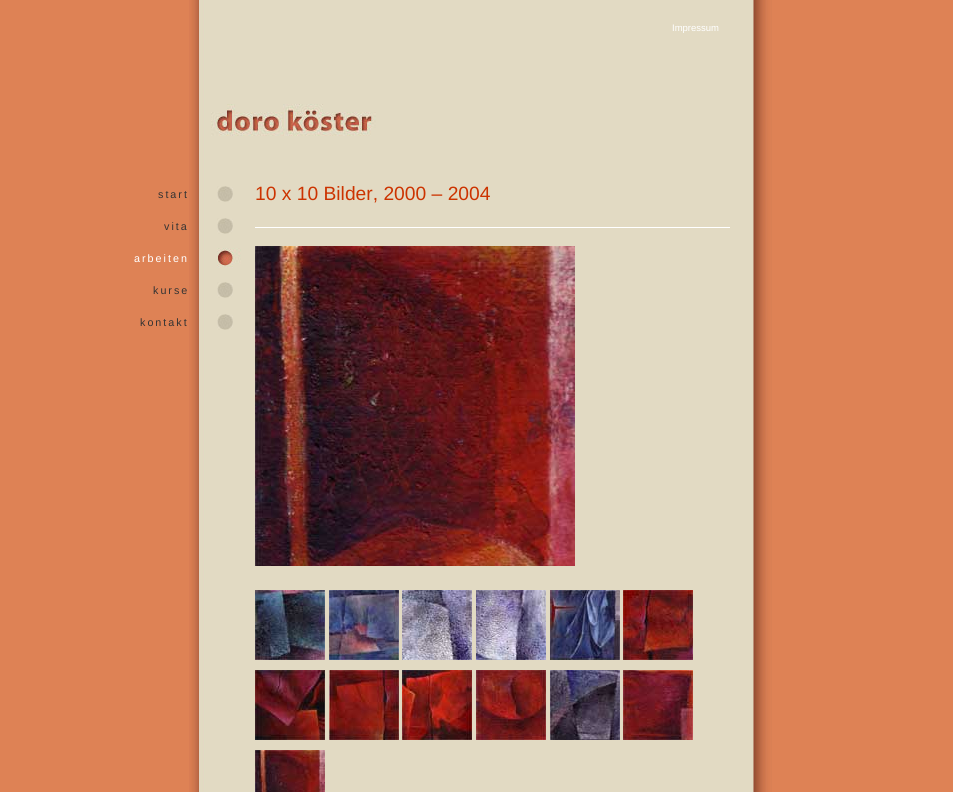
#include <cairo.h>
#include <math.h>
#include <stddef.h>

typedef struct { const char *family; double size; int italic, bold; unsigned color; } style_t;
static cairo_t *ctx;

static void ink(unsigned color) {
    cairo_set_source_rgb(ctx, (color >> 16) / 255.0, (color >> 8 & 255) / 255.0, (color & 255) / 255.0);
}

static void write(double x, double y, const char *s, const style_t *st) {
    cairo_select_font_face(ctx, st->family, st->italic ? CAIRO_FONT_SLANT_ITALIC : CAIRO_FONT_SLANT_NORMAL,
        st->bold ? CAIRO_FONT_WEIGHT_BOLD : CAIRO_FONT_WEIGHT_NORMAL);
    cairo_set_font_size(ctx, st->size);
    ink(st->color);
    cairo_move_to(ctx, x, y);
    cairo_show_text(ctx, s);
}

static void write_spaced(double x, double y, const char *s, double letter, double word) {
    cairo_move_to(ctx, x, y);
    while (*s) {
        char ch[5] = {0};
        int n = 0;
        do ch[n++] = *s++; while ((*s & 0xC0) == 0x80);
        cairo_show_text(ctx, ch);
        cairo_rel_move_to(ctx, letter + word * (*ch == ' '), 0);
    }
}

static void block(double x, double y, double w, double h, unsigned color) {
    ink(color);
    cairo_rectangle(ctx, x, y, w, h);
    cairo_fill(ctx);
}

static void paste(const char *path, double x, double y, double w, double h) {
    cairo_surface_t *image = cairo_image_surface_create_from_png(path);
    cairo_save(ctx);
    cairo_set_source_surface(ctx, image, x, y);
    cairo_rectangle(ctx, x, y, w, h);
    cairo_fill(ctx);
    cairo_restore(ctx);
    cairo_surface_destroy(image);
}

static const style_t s1 = {"Liberation Sans", 9.5, 0, 0, 0xffffff};
static const style_t s2 = {"Liberation Sans", 19.25, 0, 0, 0xcc3300};

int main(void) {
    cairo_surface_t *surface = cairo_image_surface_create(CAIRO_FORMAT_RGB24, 953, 792);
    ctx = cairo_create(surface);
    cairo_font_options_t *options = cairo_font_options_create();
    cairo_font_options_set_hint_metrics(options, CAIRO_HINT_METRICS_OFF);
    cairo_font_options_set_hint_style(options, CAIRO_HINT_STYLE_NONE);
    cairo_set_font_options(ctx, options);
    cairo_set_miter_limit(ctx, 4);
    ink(0xde8255);
    cairo_paint(ctx);
    paste("pic1.png", 189, 0, 22, 792);
    block(211, 0, 542, 792, 0xe2dac3);
    paste("pic2.png", 753, 0, 19, 792);
    write(672, 31, "Impressum", &s1);
    paste("pic3.png", 211, 104, 165, 32);
    write(255, 200, "10 x 10 Bilder, 2000 – 2004", &s2);
    block(255, 227, 475, 1, 0xffffff);
    paste("pic4.png", 255, 246, 320, 320);
    paste("pic5.png", 255, 590, 70, 70);
    paste("pic6.png", 329, 590, 70, 70);
    paste("pic7.png", 402, 590, 70, 70);
    paste("pic8.png", 476, 590, 70, 70);
    paste("pic9.png", 550, 590, 70, 70);
    paste("pic10.png", 623, 590, 70, 70);
    paste("pic11.png", 255, 670, 70, 70);
    paste("pic12.png", 329, 670, 70, 70);
    paste("pic13.png", 402, 670, 70, 70);
    paste("pic14.png", 476, 670, 70, 70);
    paste("pic15.png", 550, 670, 70, 70);
    paste("pic16.png", 623, 670, 70, 70);
    paste("pic17.png", 255, 750, 70, 42);
    paste("pic18.png", 217, 186, 16, 16);
    cairo_set_font_size(ctx, 10.75);
    ink(0x333333);
    write_spaced(158, 198, "start", 2, 0);
    paste("pic18.png", 217, 218, 16, 16);
    write_spaced(164, 230, "vita", 2, 0);
    paste("pic19.png", 217, 248, 24, 20);
    ink(0xffffff);
    write_spaced(134, 262, "arbeiten", 2, 0);
    paste("pic18.png", 217, 282, 16, 16);
    ink(0x333333);
    write_spaced(153, 294, "kurse", 2, 0);
    paste("pic18.png", 217, 314, 16, 16);
    write_spaced(140, 326, "kontakt", 2, 0);
    cairo_surface_write_to_png(surface, "screenshot.png");
    cairo_font_options_destroy(options);
    cairo_destroy(ctx);
    cairo_surface_destroy(surface);
    return 0;
}
